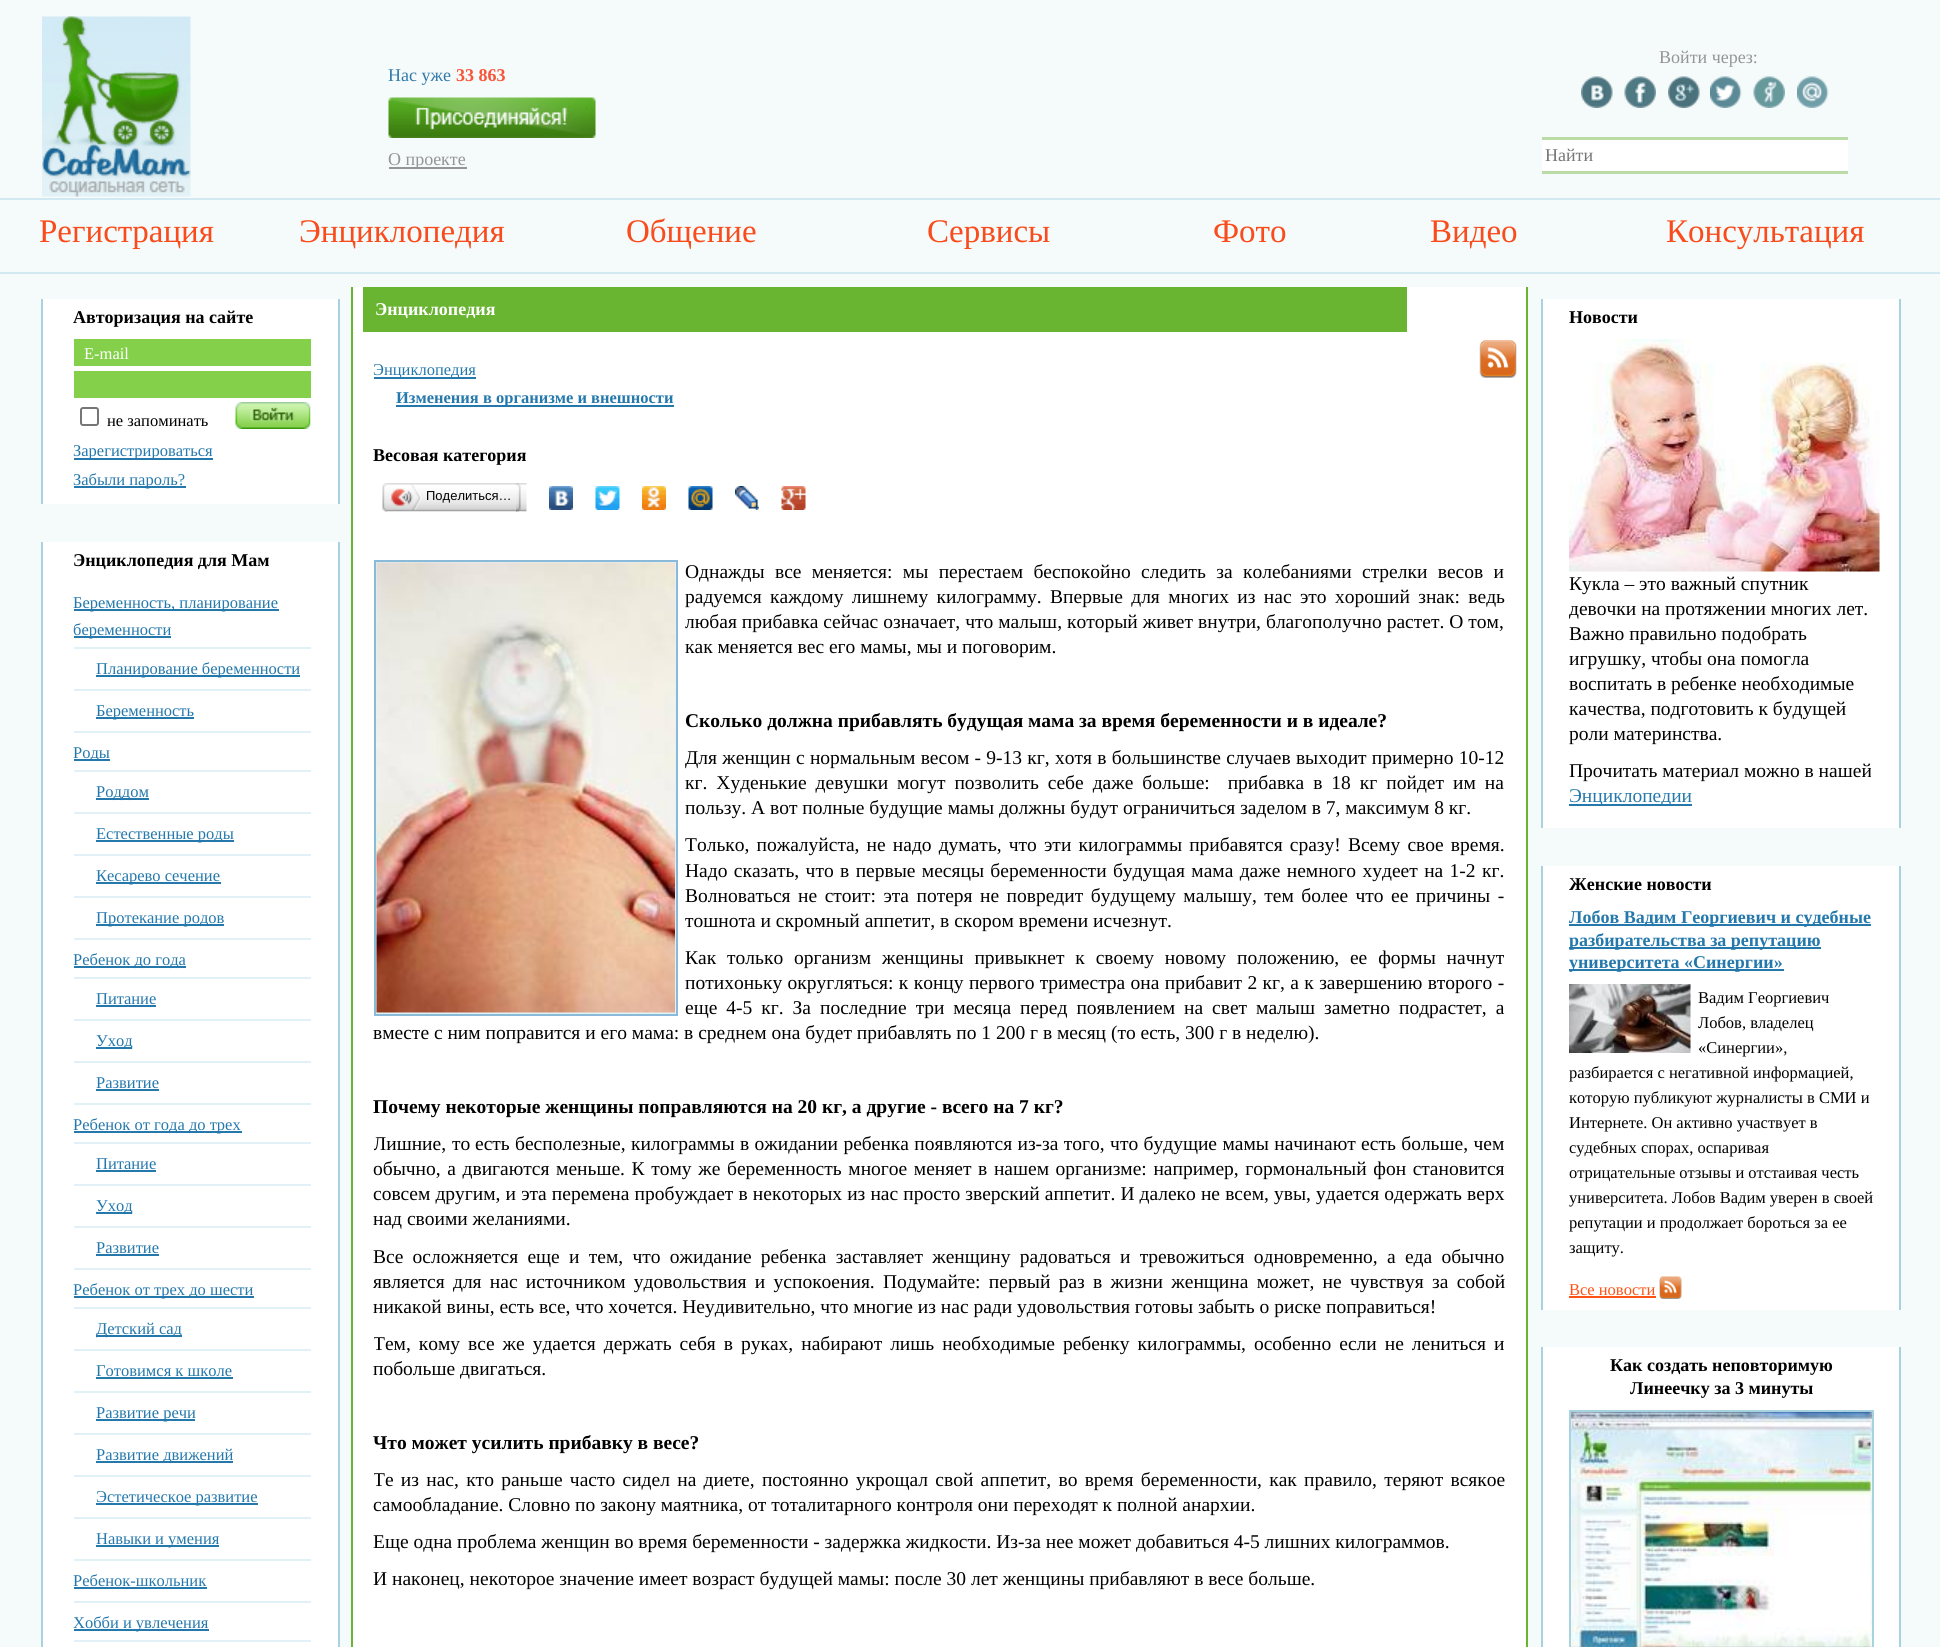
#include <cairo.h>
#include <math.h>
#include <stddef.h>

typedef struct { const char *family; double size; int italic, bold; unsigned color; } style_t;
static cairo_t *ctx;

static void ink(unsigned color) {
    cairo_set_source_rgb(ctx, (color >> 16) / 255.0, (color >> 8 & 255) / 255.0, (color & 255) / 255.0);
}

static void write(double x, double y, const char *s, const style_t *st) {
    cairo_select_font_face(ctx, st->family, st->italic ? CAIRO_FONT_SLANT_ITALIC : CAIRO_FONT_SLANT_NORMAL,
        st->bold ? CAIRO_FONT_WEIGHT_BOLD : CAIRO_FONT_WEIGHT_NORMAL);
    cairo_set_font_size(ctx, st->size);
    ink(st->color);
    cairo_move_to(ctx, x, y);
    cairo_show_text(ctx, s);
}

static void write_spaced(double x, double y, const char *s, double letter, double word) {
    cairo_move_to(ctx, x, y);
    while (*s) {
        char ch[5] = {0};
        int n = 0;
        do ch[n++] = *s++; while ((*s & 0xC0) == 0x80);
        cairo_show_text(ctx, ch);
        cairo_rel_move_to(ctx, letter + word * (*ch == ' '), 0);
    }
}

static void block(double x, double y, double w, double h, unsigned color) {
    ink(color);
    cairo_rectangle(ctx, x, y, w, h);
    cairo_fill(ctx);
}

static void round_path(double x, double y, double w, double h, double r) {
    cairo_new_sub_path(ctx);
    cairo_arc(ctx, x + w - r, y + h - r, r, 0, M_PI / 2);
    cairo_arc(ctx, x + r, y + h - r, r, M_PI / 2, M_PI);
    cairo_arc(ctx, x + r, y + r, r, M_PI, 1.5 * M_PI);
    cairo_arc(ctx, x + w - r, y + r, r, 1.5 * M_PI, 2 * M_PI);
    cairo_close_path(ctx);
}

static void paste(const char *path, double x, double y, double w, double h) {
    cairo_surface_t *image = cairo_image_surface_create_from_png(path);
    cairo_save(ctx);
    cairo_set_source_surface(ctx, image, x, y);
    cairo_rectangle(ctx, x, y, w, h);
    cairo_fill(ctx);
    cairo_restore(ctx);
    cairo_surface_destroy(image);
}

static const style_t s1 = {"Liberation Serif", 18, 0, 0, 0x959595};
static const style_t s2 = {"Liberation Serif", 18, 0, 0, 0x307aa9};
static const style_t s3 = {"Liberation Serif", 18, 0, 1, 0xf95438};
static const style_t s4 = {"Liberation Serif", 18, 0, 0, 0x757575};
static const style_t s5 = {"Liberation Serif", 33, 0, 0, 0xf94b1b};
static const style_t s6 = {"Liberation Serif", 18, 0, 1, 0x000000};
static const style_t s7 = {"Liberation Serif", 16.5, 0, 0, 0xffffff};
static const style_t s8 = {"Liberation Serif", 16.5, 0, 0, 0x000000};
static const style_t s9 = {"Liberation Serif", 16.5, 0, 0, 0x2478ac};
static const style_t s10 = {"Liberation Serif", 18, 0, 1, 0xffffff};
static const style_t s11 = {"Liberation Serif", 16.5, 0, 1, 0x2478ac};
static const style_t s12 = {"Liberation Sans", 13, 0, 0, 0x000000};
static const style_t s13 = {"Liberation Serif", 19.5, 0, 0, 0x000000};
static const style_t s14 = {"Liberation Serif", 19.5, 0, 1, 0x000000};
static const style_t s15 = {"Liberation Serif", 19.5, 0, 0, 0x2478ac};
static const style_t s16 = {"Liberation Serif", 18, 0, 1, 0x2478ac};
static const style_t s17 = {"Liberation Serif", 16.5, 0, 0, 0xfe5315};

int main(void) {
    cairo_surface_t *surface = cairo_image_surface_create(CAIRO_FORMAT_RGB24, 1940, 1647);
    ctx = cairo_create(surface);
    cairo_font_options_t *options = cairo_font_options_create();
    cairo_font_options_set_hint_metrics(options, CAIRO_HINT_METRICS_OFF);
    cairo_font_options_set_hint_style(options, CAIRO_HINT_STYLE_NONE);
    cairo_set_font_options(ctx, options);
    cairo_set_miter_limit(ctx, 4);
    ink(0xf5fafa);
    cairo_paint(ctx);
    paste("pic1.png", 42, 16, 149, 181);
    write(1659, 63, "Войти через:", &s1);
    paste("pic2.png", 1581, 76, 32, 32);
    paste("pic3.png", 1624, 76, 32, 32);
    paste("pic4.png", 1668, 76, 32, 32);
    paste("pic5.png", 1710, 76, 32, 32);
    paste("pic6.png", 1753, 76, 32, 32);
    paste("pic7.png", 1797, 76, 32, 32);
    write(388, 81, "Нас уже", &s2);
    write(456, 81, "33 863", &s3);
    paste("pic8.png", 388, 97, 208, 41);
    block(389, 167, 78, 2, 0x959595);
    write(388, 165, "О проекте", &s1);
    block(1542, 140, 306, 31, 0xffffff);
    block(1542, 137, 306, 3, 0xbadba6);
    block(1542, 171, 306, 3, 0xbadba6);
    write(1545, 161, "Найти", &s4);
    block(0, 198, 1940, 2, 0xd3e9f1);
    block(0, 272, 1940, 2, 0xd3e9f1);
    write(39, 242, "Регистрация", &s5);
    write(299, 242, "Энциклопедия", &s5);
    write(626, 242, "Общение", &s5);
    write(927, 242, "Сервисы", &s5);
    write(1213, 242, "Фото", &s5);
    write(1430, 242, "Видео", &s5);
    write(1666, 242, "Консультация", &s5);
    block(43, 299, 295, 205, 0xffffff);
    block(338, 299, 2, 205, 0xa7d2e0);
    block(41, 299, 2, 205, 0xa7d2e0);
    write(73, 323, "Авторизация на сайте", &s6);
    block(74, 339, 237, 27, 0x84d04b);
    write(84, 359, "E-mail", &s7);
    block(74, 371, 237, 27, 0x84d04b);
    round_path(81, 408, 17, 17, 2);
    ink(0x767676);
    cairo_stroke(ctx);
    write(107, 426, "не запоминать", &s8);
    paste("pic9.png", 235, 402, 76, 27);
    block(74, 458, 139, 2, 0x2478ac);
    write(73, 456, "Зарегистрироваться", &s9);
    block(74, 486, 112, 2, 0x2478ac);
    write(73, 485, "Забыли пароль?", &s9);
    block(43, 542, 295, 1105, 0xffffff);
    block(338, 542, 2, 1105, 0xa7d2e0);
    block(41, 542, 2, 1105, 0xa7d2e0);
    write(73, 566, "Энциклопедия для Мам", &s6);
    block(74, 731, 237, 2, 0xe1f1f7);
    block(74, 609, 205, 2, 0x2478ac);
    write(73, 608, "Беременность, планирование", &s9);
    block(74, 636, 97, 2, 0x2478ac);
    write(73, 635, "беременности", &s9);
    block(74, 647, 237, 2, 0xe1f1f7);
    block(96, 675, 204, 2, 0x2478ac);
    write(96, 674, "Планирование беременности", &s9);
    block(74, 689, 237, 2, 0xe1f1f7);
    block(96, 717, 98, 2, 0x2478ac);
    write(96, 716, "Беременность", &s9);
    block(74, 938, 237, 2, 0xe1f1f7);
    block(74, 759, 36, 2, 0x2478ac);
    write(73, 758, "Роды", &s9);
    block(74, 770, 237, 2, 0xe1f1f7);
    block(96, 798, 53, 2, 0x2478ac);
    write(96, 797, "Роддом", &s9);
    block(74, 812, 237, 2, 0xe1f1f7);
    block(96, 840, 138, 2, 0x2478ac);
    write(96, 839, "Естественные роды", &s9);
    block(74, 854, 237, 2, 0xe1f1f7);
    block(96, 882, 125, 2, 0x2478ac);
    write(96, 881, "Кесарево сечение", &s9);
    block(74, 896, 237, 2, 0xe1f1f7);
    block(96, 924, 128, 2, 0x2478ac);
    write(96, 923, "Протекание родов", &s9);
    block(74, 1103, 237, 2, 0xe1f1f7);
    block(74, 966, 112, 2, 0x2478ac);
    write(73, 965, "Ребенок до года", &s9);
    block(74, 977, 237, 2, 0xe1f1f7);
    write(96, 1004, "Питание", &s9);
    block(96, 1005, 60, 2, 0x2478ac);
    block(74, 1019, 237, 2, 0xe1f1f7);
    block(96, 1047, 36, 2, 0x2478ac);
    write(96, 1046, "Уход", &s9);
    block(74, 1061, 237, 2, 0xe1f1f7);
    write(96, 1088, "Развитие", &s9);
    block(96, 1089, 63, 2, 0x2478ac);
    block(74, 1268, 237, 2, 0xe1f1f7);
    block(74, 1131, 168, 2, 0x2478ac);
    write(73, 1130, "Ребенок от года до трех", &s9);
    block(74, 1142, 237, 2, 0xe1f1f7);
    write(96, 1169, "Питание", &s9);
    block(96, 1170, 60, 2, 0x2478ac);
    block(74, 1184, 237, 2, 0xe1f1f7);
    block(96, 1212, 36, 2, 0x2478ac);
    write(96, 1211, "Уход", &s9);
    block(74, 1226, 237, 2, 0xe1f1f7);
    write(96, 1253, "Развитие", &s9);
    block(96, 1254, 63, 2, 0x2478ac);
    block(74, 1559, 237, 2, 0xe1f1f7);
    block(74, 1296, 180, 2, 0x2478ac);
    write(73, 1295, "Ребенок от трех до шести", &s9);
    block(74, 1307, 237, 2, 0xe1f1f7);
    block(96, 1335, 86, 2, 0x2478ac);
    write(96, 1334, "Детский сад", &s9);
    block(74, 1349, 237, 2, 0xe1f1f7);
    write(96, 1376, "Готовимся к школе", &s9);
    block(96, 1377, 137, 2, 0x2478ac);
    block(74, 1391, 237, 2, 0xe1f1f7);
    block(96, 1419, 99, 2, 0x2478ac);
    write(96, 1418, "Развитие речи", &s9);
    block(74, 1433, 237, 2, 0xe1f1f7);
    block(96, 1461, 137, 2, 0x2478ac);
    write(96, 1460, "Развитие движений", &s9);
    block(74, 1475, 237, 2, 0xe1f1f7);
    block(96, 1503, 162, 2, 0x2478ac);
    write(96, 1502, "Эстетическое развитие", &s9);
    block(74, 1517, 237, 2, 0xe1f1f7);
    block(96, 1545, 123, 2, 0x2478ac);
    write(96, 1544, "Навыки и умения", &s9);
    block(74, 1601, 237, 2, 0xe1f1f7);
    write(73, 1586, "Ребенок-школьник", &s9);
    block(74, 1587, 133, 2, 0x2478ac);
    block(74, 1629, 135, 2, 0x2478ac);
    write(73, 1628, "Хобби и увлечения", &s9);
    block(74, 1640, 237, 2, 0xe1f1f7);
    block(353, 287, 1173, 1360, 0xffffff);
    block(1526, 287, 2, 1360, 0x69b431);
    block(351, 287, 2, 1360, 0x69b431);
    block(363, 287, 1044, 45, 0x69b431);
    write(375, 315, "Энциклопедия", &s10);
    paste("pic10.png", 1479, 340, 38, 38);
    block(374, 377, 102, 2, 0x2478ac);
    write(373, 375, "Энциклопедия", &s9);
    block(396, 405, 278, 2, 0x2478ac);
    write(396, 403, "Изменения в организме и внешности", &s11);
    write(373, 461, "Весовая категория", &s6);
    paste("pic11.png", 387, 483, 140, 29);
    paste("pic12.png", 382, 483, 5, 29);
    paste("pic13.png", 391, 484, 31, 26);
    write(426, 500, "Поделиться…", &s12);
    paste("pic14.png", 516, 483, 5, 29);
    paste("pic15.png", 549, 486, 24, 24);
    paste("pic16.png", 595, 486, 25, 24);
    paste("pic17.png", 642, 486, 24, 24);
    paste("pic18.png", 688, 486, 25, 24);
    paste("pic19.png", 735, 486, 24, 24);
    paste("pic20.png", 781, 486, 25, 24);
    ink(0xe5f2f4);
    cairo_rectangle(ctx, 375, 561, 302, 454);
    cairo_fill_preserve(ctx);
    ink(0x89bad9);
    cairo_stroke(ctx);
    paste("pic21.png", 376, 562, 299, 451);
    cairo_select_font_face(ctx, "Liberation Serif", CAIRO_FONT_SLANT_NORMAL, CAIRO_FONT_WEIGHT_NORMAL);
    cairo_set_font_size(ctx, 19.5);
    ink(0x000000);
    write_spaced(685, 578, "Однажды все меняется: мы перестаем беспокойно следить за колебаниями стрелки весов и", 0, 5.5);
    write_spaced(685, 603, "радуемся каждому лишнему килограмму. Впервые для многих из нас это хороший знак: ведь", 0, 3.5);
    write_spaced(685, 628, "любая прибавка сейчас означает, что малыш, который живет внутри, благополучно растет. О том,", 0, 0.1);
    write(685, 653, "как меняется вес его мамы, мы и поговорим.", &s13);
    write(685, 727, "Сколько должна прибавлять будущая мама за время беременности и в идеале?", &s14);
    cairo_select_font_face(ctx, "Liberation Serif", CAIRO_FONT_SLANT_NORMAL, CAIRO_FONT_WEIGHT_NORMAL);
    write_spaced(685, 764, "Для женщин с нормальным весом - 9-13 кг, хотя в большинстве случаев выходит примерно 10-12", 0, 0.4);
    write_spaced(685, 789, "кг. Худенькие девушки могут позволить себе даже больше:  прибавка в 18 кг пойдет им на", 0, 4.1);
    write(685, 814, "пользу. А вот полные будущие мамы должны будут ограничиться заделом в 7, максимум 8 кг.", &s13);
    write_spaced(685, 851, "Только, пожалуйста, не надо думать, что эти килограммы прибавятся сразу! Всему свое время.", 0, 2.25);
    write_spaced(685, 877, "Надо сказать, что в первые месяцы беременности будущая мама даже немного худеет на 1-2 кг.", 0, 1.5);
    write_spaced(685, 902, "Волноваться не стоит: эта потеря не повредит будущему малышу, тем более что ее причины -", 0, 2.6);
    write(685, 927, "тошнота и скромный аппетит, в скором времени исчезнут.", &s13);
    write_spaced(685, 964, "Как только организм женщины привыкнет к своему новому положению, ее формы начнут", 0, 6);
    write_spaced(685, 989, "потихоньку округляться: к концу первого триместра она прибавит 2 кг, а к завершению второго -", 0, 0.5);
    write_spaced(685, 1014, "еще 4-5 кг. За последние три месяца перед появлением на свет малыш заметно подрастет, а", 0, 4.1);
    write(373, 1039, "вместе с ним поправится и его мама: в среднем она будет прибавлять по 1 200 г в месяц (то есть, 300 г в неделю).", &s13);
    write(373, 1113, "Почему некоторые женщины поправляются на 20 кг, а другие - всего на 7 кг?", &s14);
    cairo_save(ctx);
    cairo_rectangle(ctx, 374, 444, 1131, 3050);
    cairo_clip(ctx);
    write(373, 1150, "Лишние,", &s13);
    cairo_restore(ctx);
    write(452, 1150, "то", &s13);
    write(475, 1150, "есть", &s13);
    write_spaced(515, 1150, "бесполезные, килограммы в ожидании ребенка появляются из-за того, что будущие мамы начинают есть больше, чем", 0, 0.5);
    write_spaced(373, 1175, "обычно, а двигаются меньше. К тому же беременность многое меняет в нашем организме: например, гормональный фон становится", 0, 1.75);
    write_spaced(373, 1200, "совсем другим, и эта перемена пробуждает в некоторых из нас просто зверский аппетит. И далеко не всем, увы, удается одержать верх", 0, 0.25);
    write(373, 1225, "над своими желаниями.", &s13);
    write_spaced(373, 1263, "Все осложняется еще и тем, что ожидание ребенка заставляет женщину радоваться и тревожиться одновременно, а еда обычно", 0, 4.4);
    write_spaced(373, 1288, "является для нас источником удовольствия и успокоения. Подумайте: первый раз в жизни женщина может, не чувствуя за собой", 0, 3.4);
    write(373, 1313, "никакой вины, есть все, что хочется. Неудивительно, что многие из нас ради удовольствия готовы забыть о риске поправиться!", &s13);
    cairo_save(ctx);
    cairo_rectangle(ctx, 374, 444, 1131, 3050);
    cairo_clip(ctx);
    write_spaced(373, 1350, "Тем, кому все же удается держать себя в руках, набирают лишь необходимые ребенку килограммы, особенно если не лениться и", 0, 3.1);
    cairo_restore(ctx);
    write(373, 1375, "побольше двигаться.", &s13);
    write(373, 1449, "Что может усилить прибавку в весе?", &s14);
    cairo_save(ctx);
    cairo_rectangle(ctx, 374, 444, 1131, 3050);
    cairo_clip(ctx);
    cairo_select_font_face(ctx, "Liberation Serif", CAIRO_FONT_SLANT_NORMAL, CAIRO_FONT_WEIGHT_NORMAL);
    write_spaced(373, 1486, "Те из нас, кто раньше часто сидел на диете, постоянно укрощал свой аппетит, во время беременности, как правило, теряют всякое", 0, 2.4);
    cairo_restore(ctx);
    write(373, 1511, "самообладание. Словно по закону маятника, от тоталитарного контроля они переходят к полной анархии.", &s13);
    write(373, 1548, "Еще одна проблема женщин во время беременности - задержка жидкости. Из-за нее может добавиться 4-5 лишних килограммов.", &s13);
    write(373, 1585, "И наконец, некоторое значение имеет возраст будущей мамы: после 30 лет женщины прибавляют в весе больше.", &s13);
    block(1543, 299, 356, 529, 0xffffff);
    block(1899, 299, 2, 529, 0xa7d2e0);
    block(1541, 299, 2, 529, 0xa7d2e0);
    write(1569, 323, "Новости", &s6);
    paste("pic22.png", 1569, 339, 311, 233);
    write(1569, 590, "Кукла – это важный спутник", &s13);
    write(1569, 615, "девочки на протяжении многих лет.", &s13);
    write(1569, 640, "Важно правильно подобрать", &s13);
    write(1569, 665, "игрушку, чтобы она помогла", &s13);
    write(1569, 690, "воспитать в ребенке необходимые", &s13);
    write(1569, 715, "качества, подготовить к будущей", &s13);
    write(1569, 740, "роли материнства.", &s13);
    write(1569, 777, "Прочитать материал можно в нашей", &s13);
    block(1569, 804, 123, 2, 0x2478ac);
    write(1569, 802, "Энциклопедии", &s15);
    block(1543, 866, 356, 444, 0xffffff);
    block(1899, 866, 2, 444, 0xa7d2e0);
    block(1541, 866, 2, 444, 0xa7d2e0);
    write(1569, 890, "Женские новости", &s6);
    block(1569, 924, 302, 2, 0x2478ac);
    write(1569, 923, "Лобов Вадим Георгиевич и судебные", &s16);
    block(1569, 947, 252, 2, 0x2478ac);
    write(1569, 946, "разбирательства за репутацию", &s16);
    block(1569, 969, 215, 2, 0x2478ac);
    write(1569, 968, "университета «Синергии»", &s16);
    paste("pic23.png", 1569, 984, 122, 69);
    write(1698, 1003, "Вадим Георгиевич", &s8);
    write(1698, 1028, "Лобов, владелец", &s8);
    write(1698, 1053, "«Синергии»,", &s8);
    write(1569, 1078, "разбирается с негативной информацией,", &s8);
    write(1569, 1103, "которую публикуют журналисты в СМИ и", &s8);
    write(1569, 1128, "Интернете. Он активно участвует в", &s8);
    write(1569, 1153, "судебных спорах, оспаривая", &s8);
    write(1569, 1178, "отрицательные отзывы и отстаивая честь", &s8);
    write(1569, 1203, "университета. Лобов Вадим уверен в своей", &s8);
    write(1569, 1228, "репутации и продолжает бороться за ее", &s8);
    write(1569, 1253, "защиту.", &s8);
    write(1569, 1295, "Все новости", &s17);
    block(1569, 1296, 87, 2, 0xfe5315);
    paste("pic24.png", 1659, 1276, 23, 23);
    block(1543, 1347, 356, 300, 0xffffff);
    block(1899, 1347, 2, 300, 0xa7d2e0);
    block(1541, 1347, 2, 300, 0xa7d2e0);
    write(1610, 1371, "Как создать неповторимую", &s6);
    write(1630, 1394, "Линеечку за 3 минуты", &s6);
    paste("pic25.png", 1571, 1412, 301, 235);
    cairo_rectangle(ctx, 1570, 1411, 303, 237);
    ink(0xa7d2e0);
    cairo_stroke(ctx);
    cairo_surface_write_to_png(surface, "screenshot.png");
    cairo_font_options_destroy(options);
    cairo_destroy(ctx);
    cairo_surface_destroy(surface);
    return 0;
}
